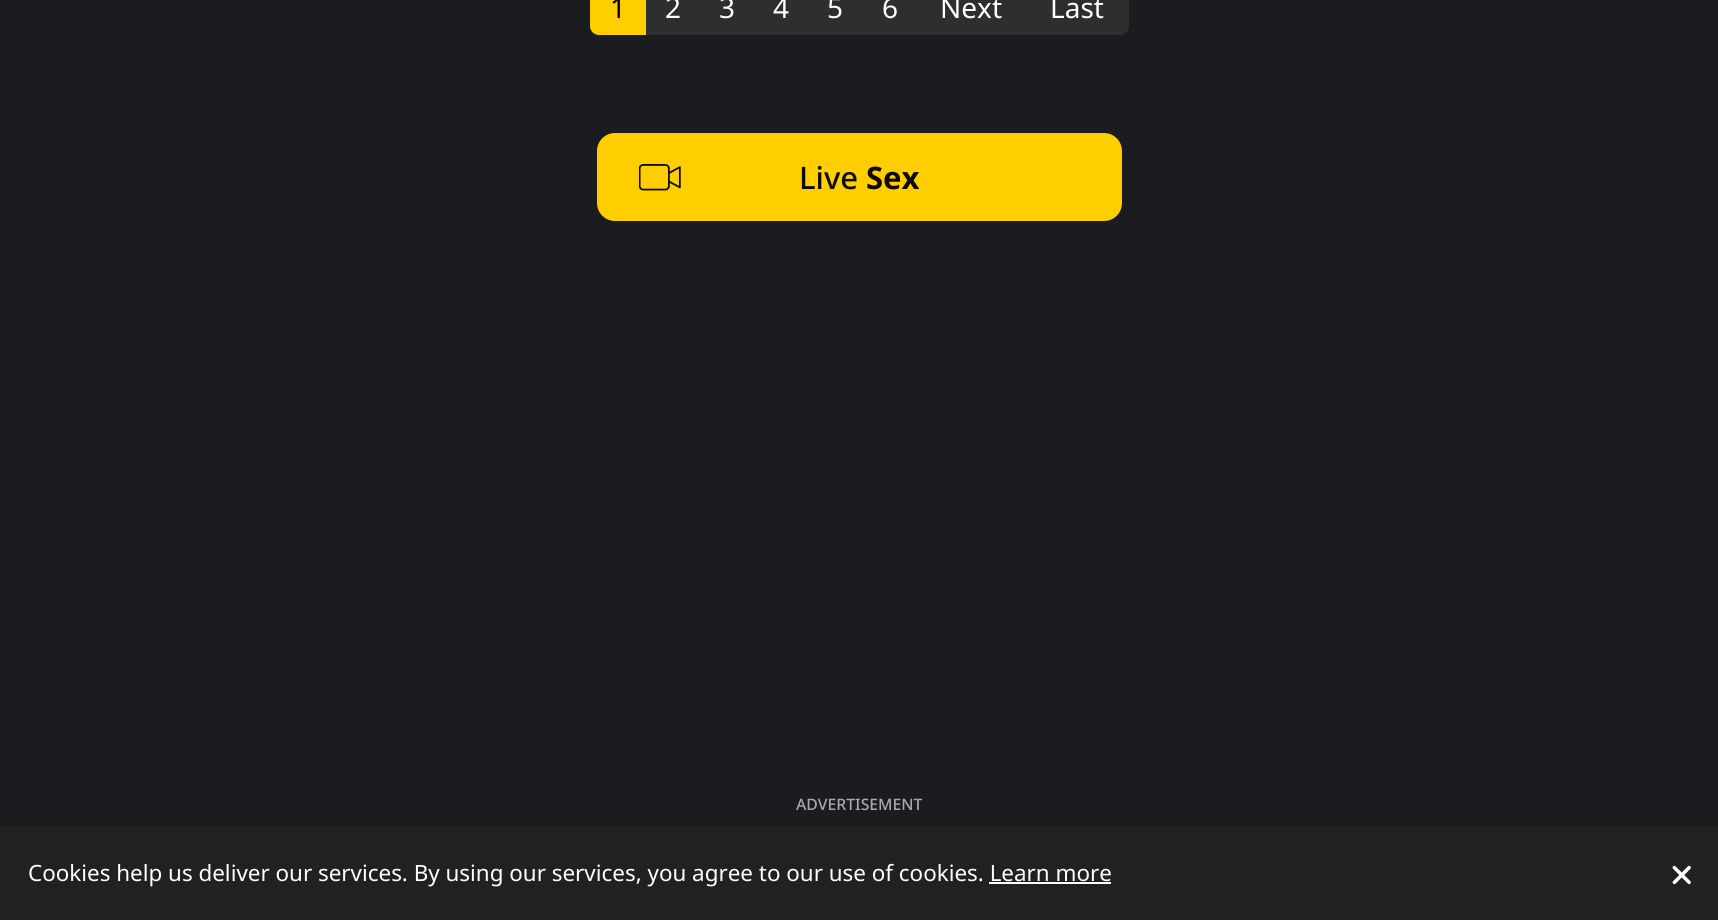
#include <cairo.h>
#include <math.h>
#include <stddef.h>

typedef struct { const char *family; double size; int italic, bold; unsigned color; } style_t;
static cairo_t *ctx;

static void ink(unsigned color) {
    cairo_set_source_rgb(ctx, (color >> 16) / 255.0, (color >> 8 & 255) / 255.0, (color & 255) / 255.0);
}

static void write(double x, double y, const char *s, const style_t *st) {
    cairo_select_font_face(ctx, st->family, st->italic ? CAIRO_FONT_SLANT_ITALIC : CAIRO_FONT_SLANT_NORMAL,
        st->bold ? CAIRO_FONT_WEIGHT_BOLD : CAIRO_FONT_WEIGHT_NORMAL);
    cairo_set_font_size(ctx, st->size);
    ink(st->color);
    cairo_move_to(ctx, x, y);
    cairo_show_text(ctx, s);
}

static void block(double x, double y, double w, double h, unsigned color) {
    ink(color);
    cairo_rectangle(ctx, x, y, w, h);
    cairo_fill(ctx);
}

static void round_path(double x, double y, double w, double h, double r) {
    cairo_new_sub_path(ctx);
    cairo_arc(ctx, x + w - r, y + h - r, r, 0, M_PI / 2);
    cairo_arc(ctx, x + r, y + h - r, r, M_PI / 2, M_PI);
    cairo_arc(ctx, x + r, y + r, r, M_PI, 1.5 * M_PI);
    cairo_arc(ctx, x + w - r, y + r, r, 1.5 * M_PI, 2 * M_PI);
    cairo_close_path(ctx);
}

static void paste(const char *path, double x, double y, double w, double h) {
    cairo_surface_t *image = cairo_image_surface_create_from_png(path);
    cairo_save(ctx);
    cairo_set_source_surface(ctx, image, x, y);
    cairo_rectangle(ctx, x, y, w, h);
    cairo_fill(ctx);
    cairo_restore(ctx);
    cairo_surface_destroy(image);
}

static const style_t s1 = {"Noto Sans", 28, 0, 0, 0x000000};
static const style_t s2 = {"Noto Sans", 28, 0, 0, 0xffffff};
static const style_t s3 = {"Noto Sans Medium", 31, 0, 0, 0x0d0a00};
static const style_t s4 = {"Noto Sans", 31, 0, 1, 0x0d0a00};
static const style_t s5 = {"Noto Sans Medium", 15.75, 0, 0, 0xa9a9a9};
static const style_t s6 = {"Noto Sans", 22.4, 0, 0, 0xffffff};

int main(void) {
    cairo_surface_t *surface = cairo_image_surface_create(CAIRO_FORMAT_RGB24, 1718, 920);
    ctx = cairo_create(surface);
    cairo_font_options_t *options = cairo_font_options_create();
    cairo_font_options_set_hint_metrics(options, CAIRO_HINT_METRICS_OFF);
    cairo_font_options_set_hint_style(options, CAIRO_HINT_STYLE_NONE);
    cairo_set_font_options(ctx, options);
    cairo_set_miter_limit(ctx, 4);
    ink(0x1b1c20);
    cairo_paint(ctx);
    ink(0xffce00);
    cairo_new_path(ctx);
    cairo_move_to(ctx, 599, -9);
    cairo_line_to(ctx, 646, -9);
    cairo_line_to(ctx, 646, 35);
    cairo_line_to(ctx, 599, 35);
    cairo_curve_to(ctx, 594, 35, 590, 31, 590, 26);
    cairo_line_to(ctx, 590, 0);
    cairo_curve_to(ctx, 590, -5, 594, -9, 599, -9);
    cairo_close_path(ctx);
    cairo_fill(ctx);
    write(610, 18, "1", &s1);
    block(646, 0, 380, 35, 0x2e2e2e);
    write(665, 18, "2", &s2);
    write(719, 18, "3", &s2);
    write(773, 18, "4", &s2);
    write(827, 18, "5", &s2);
    write(882, 18, "6", &s2);
    write(940, 18, "Next", &s2);
    ink(0x2e2e2e);
    cairo_new_path(ctx);
    cairo_move_to(ctx, 1026, -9);
    cairo_line_to(ctx, 1120, -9);
    cairo_curve_to(ctx, 1125, -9, 1129, -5, 1129, 0);
    cairo_line_to(ctx, 1129, 26);
    cairo_curve_to(ctx, 1129, 31, 1125, 35, 1120, 35);
    cairo_line_to(ctx, 1026, 35);
    cairo_close_path(ctx);
    cairo_fill(ctx);
    write(1050, 18, "Last", &s2);
    ink(0xffce00);
    round_path(597, 133, 525, 88, 18);
    cairo_fill(ctx);
    paste("pic1.png", 639, 164, 42, 27);
    write(799, 189, "Live", &s3);
    write(866, 189, "Sex", &s4);
    write(796, 810, "ADVERTISEMENT", &s5);
    block(0, 826, 1718, 94, 0x212121);
    write(28, 881, "Cookies help us deliver our services. By using our services, you agree to our use of cookies. Learn more", &s6);
    block(989, 882, 122, 2, 0xffffff);
    paste("pic2.png", 1672, 865, 19, 20);
    cairo_surface_write_to_png(surface, "screenshot.png");
    cairo_font_options_destroy(options);
    cairo_destroy(ctx);
    cairo_surface_destroy(surface);
    return 0;
}
